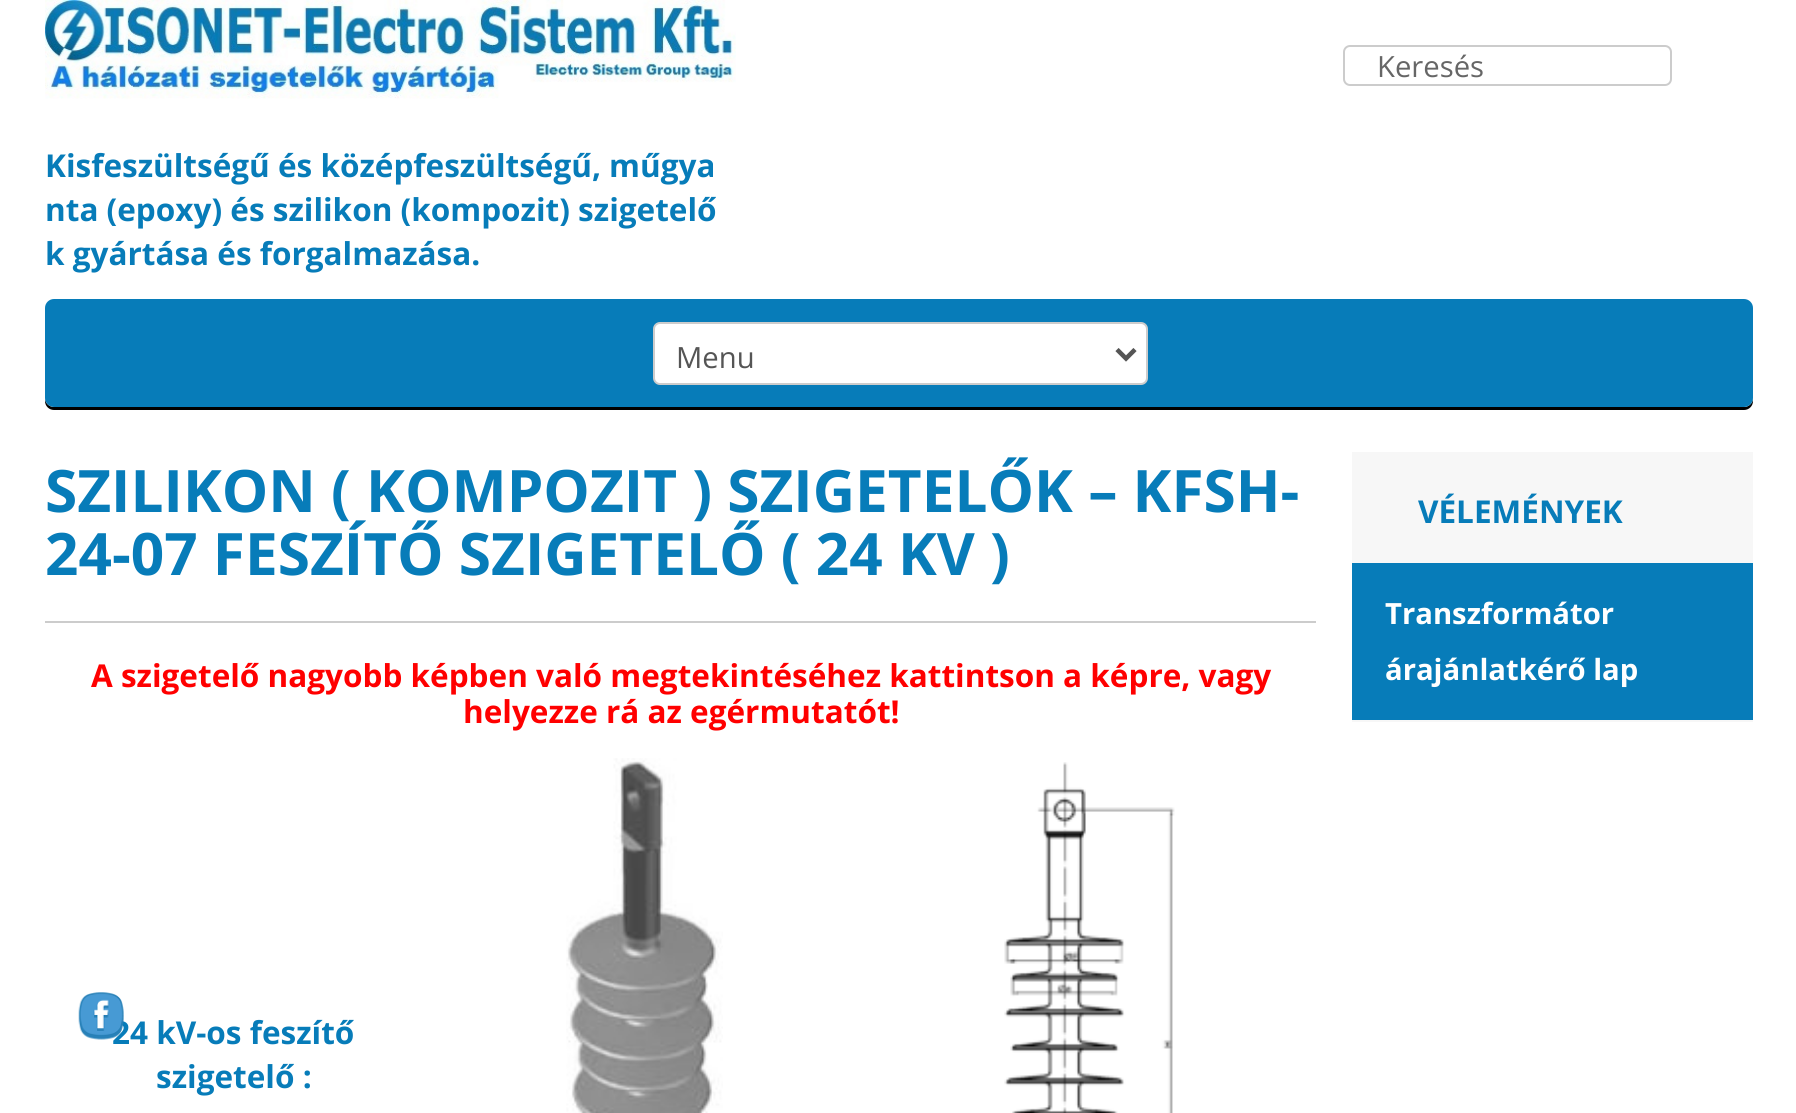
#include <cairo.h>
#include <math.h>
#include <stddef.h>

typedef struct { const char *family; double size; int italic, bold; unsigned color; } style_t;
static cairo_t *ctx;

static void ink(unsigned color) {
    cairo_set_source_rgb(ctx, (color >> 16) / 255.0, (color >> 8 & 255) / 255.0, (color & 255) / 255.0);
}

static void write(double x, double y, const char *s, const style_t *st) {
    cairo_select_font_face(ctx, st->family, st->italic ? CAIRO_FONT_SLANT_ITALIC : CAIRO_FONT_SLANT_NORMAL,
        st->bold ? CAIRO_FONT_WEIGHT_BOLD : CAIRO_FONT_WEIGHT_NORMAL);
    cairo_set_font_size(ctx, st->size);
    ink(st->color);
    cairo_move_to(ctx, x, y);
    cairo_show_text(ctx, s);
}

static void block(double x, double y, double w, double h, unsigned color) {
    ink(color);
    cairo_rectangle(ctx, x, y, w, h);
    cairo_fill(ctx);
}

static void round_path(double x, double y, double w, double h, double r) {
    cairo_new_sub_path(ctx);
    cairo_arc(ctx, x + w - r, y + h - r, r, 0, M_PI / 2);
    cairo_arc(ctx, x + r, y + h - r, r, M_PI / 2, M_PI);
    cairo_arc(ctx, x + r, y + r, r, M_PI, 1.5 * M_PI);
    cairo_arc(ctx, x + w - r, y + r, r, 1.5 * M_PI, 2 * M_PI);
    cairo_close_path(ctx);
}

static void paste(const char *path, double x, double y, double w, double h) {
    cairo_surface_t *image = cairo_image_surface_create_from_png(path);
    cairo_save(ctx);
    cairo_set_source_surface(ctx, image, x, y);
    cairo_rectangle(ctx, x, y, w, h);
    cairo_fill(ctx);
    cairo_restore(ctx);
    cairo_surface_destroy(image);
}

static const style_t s1 = {"Open Sans", 29.25, 0, 0, 0x666666};
static const style_t s2 = {"Open Sans", 31.5, 0, 1, 0x077cb9};
static const style_t s3 = {"Open Sans", 29.25, 0, 0, 0x555555};
static const style_t s4 = {"Open Sans", 58.5, 0, 1, 0x077cb9};
static const style_t s5 = {"Open Sans", 31.5, 0, 1, 0xff0000};
static const style_t s6 = {"Open Sans", 29.25, 0, 1, 0xffffff};

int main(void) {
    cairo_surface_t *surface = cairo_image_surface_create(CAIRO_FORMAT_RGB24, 1796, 1113);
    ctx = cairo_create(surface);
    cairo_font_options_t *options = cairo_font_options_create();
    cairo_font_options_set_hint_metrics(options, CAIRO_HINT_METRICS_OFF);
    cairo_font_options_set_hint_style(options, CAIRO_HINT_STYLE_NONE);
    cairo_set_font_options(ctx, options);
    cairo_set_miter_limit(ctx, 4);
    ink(0xffffff);
    cairo_paint(ctx);
    round_path(1344, 46, 327, 39, 6);
    ink(0xcccccc);
    cairo_stroke(ctx);
    write(1377, 77, "Keresés", &s1);
    paste("pic1.png", 45, 0, 691, 99);
    write(45, 177, "Kisfeszültségű és középfeszültségű, műgya", &s2);
    write(45, 221, "nta (epoxy) és szilikon (kompozit) szigetelő", &s2);
    write(45, 265, "k gyártása és forgalmazása.", &s2);
    ink(0x000000);
    cairo_new_path(ctx);
    cairo_move_to(ctx, 45, 398);
    cairo_line_to(ctx, 45, 401);
    cairo_curve_to(ctx, 45, 406, 49, 410, 54, 410);
    cairo_line_to(ctx, 1744, 410);
    cairo_curve_to(ctx, 1749, 410, 1753, 406, 1753, 401);
    cairo_line_to(ctx, 1753, 309);
    cairo_line_to(ctx, 1753, 398);
    cairo_curve_to(ctx, 1753, 403, 1749, 407, 1744, 407);
    cairo_line_to(ctx, 54, 407);
    cairo_curve_to(ctx, 49, 407, 45, 403, 45, 398);
    cairo_close_path(ctx);
    cairo_fill(ctx);
    ink(0x077cb9);
    round_path(45, 299, 1708, 108, 9);
    cairo_fill(ctx);
    ink(0xffffff);
    round_path(654, 323, 493, 61, 6);
    cairo_fill_preserve(ctx);
    ink(0xcccccc);
    cairo_stroke(ctx);
    cairo_new_path(ctx);
    cairo_move_to(ctx, 1117, 349.5);
    cairo_line_to(ctx, 1126, 358.5);
    cairo_line_to(ctx, 1135, 349.5);
    ink(0x555555);
    cairo_set_line_width(ctx, 4.5);
    cairo_stroke(ctx);
    write(676, 368, "Menu", &s3);
    block(45, 621, 1271, 2, 0xcccccc);
    write(45, 512, "SZILIKON ( KOMPOZIT ) SZIGETELŐK – KFSH-", &s4);
    write(45, 575, "24-07 FESZÍTŐ SZIGETELŐ ( 24 KV )", &s4);
    write(91, 687, "A szigetelő nagyobb képben való megtekintéséhez kattintson a képre, vagy", &s5);
    write(463, 723, "helyezze rá az egérmutatót!", &s5);
    write(112, 1044, "24 kV-os feszítő", &s2);
    write(156, 1088, "szigetelő :", &s2);
    paste("pic2.png", 566, 758, 157, 355);
    paste("pic3.png", 1004, 762, 171, 351);
    block(1352, 452, 401, 270, 0xf7f7f7);
    write(1418, 523, "VÉLEMÉNYEK", &s2);
    block(1352, 563, 401, 157, 0x077cb9);
    write(1385, 624, "Transzformátor", &s6);
    write(1385, 680, "árajánlatkérő lap", &s6);
    paste("pic4.png", 78, 992, 46, 48);
    cairo_surface_write_to_png(surface, "screenshot.png");
    cairo_font_options_destroy(options);
    cairo_destroy(ctx);
    cairo_surface_destroy(surface);
    return 0;
}
